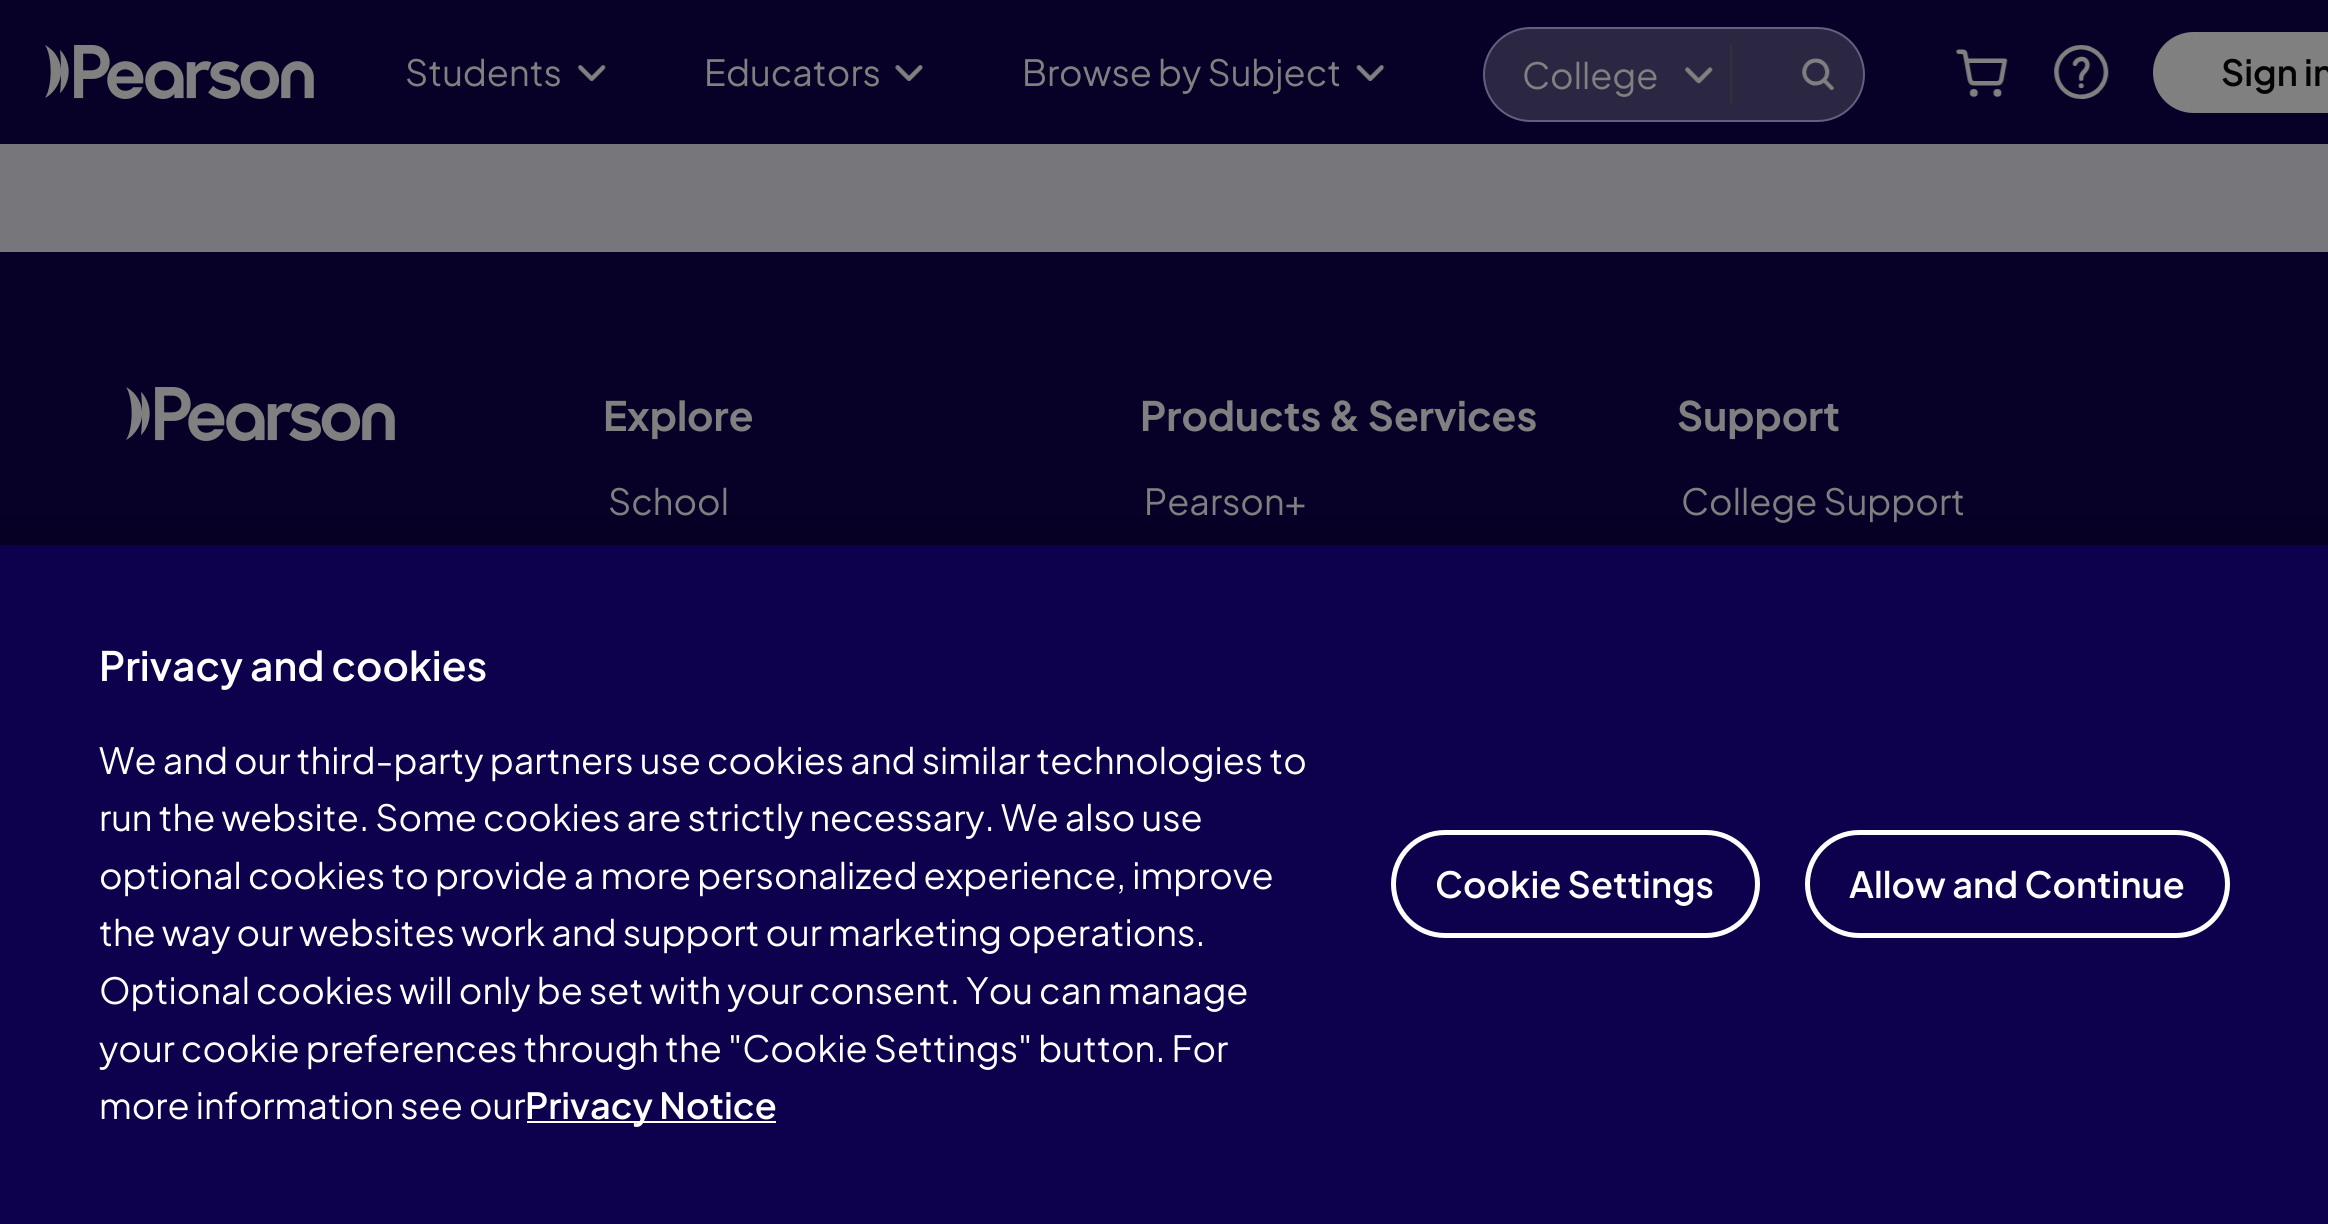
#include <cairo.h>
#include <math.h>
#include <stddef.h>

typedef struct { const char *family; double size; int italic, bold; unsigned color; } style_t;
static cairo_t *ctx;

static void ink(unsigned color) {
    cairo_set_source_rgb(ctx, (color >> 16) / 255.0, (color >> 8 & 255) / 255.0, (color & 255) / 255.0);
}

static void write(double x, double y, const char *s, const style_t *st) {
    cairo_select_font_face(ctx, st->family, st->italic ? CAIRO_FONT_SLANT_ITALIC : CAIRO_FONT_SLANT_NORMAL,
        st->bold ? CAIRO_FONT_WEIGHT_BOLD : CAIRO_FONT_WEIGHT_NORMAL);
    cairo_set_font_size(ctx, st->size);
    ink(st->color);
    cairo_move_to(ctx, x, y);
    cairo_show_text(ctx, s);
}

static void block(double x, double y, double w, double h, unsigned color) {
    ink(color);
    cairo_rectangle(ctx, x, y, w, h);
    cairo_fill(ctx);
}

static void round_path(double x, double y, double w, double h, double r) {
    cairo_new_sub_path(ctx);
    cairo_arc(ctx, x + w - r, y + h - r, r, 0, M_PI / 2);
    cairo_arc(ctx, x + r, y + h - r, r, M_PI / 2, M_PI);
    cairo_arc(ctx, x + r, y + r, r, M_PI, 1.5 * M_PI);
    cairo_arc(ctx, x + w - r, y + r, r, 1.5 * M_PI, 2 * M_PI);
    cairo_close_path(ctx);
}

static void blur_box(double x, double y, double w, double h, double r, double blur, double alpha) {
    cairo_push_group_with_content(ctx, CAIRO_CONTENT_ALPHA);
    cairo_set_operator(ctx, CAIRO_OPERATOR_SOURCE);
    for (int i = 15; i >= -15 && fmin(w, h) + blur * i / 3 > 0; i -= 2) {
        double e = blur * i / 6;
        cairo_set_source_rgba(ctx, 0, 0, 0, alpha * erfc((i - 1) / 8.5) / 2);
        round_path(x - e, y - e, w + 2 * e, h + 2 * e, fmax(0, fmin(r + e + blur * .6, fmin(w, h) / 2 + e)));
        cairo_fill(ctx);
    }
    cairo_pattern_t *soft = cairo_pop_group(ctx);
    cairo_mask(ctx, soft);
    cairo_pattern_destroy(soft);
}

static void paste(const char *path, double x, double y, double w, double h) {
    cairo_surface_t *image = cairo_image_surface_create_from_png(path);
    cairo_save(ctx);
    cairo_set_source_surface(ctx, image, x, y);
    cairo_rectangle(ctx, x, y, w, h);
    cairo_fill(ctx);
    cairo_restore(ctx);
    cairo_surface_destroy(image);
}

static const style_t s1 = {"Plus Jakarta Sans", 36, 0, 0, 0x808080};
static const style_t s2 = {"Plus Jakarta Sans SemiBold", 36, 0, 0, 0x030305};
static const style_t s3 = {"Plus Jakarta Sans", 40.5, 0, 1, 0x808080};
static const style_t s4 = {"Plus Jakarta Sans SemiBold", 40.5, 0, 0, 0xffffff};
static const style_t s5 = {"Plus Jakarta Sans", 36, 0, 0, 0xffffff};
static const style_t s6 = {"Plus Jakarta Sans SemiBold", 36, 0, 0, 0xffffff};

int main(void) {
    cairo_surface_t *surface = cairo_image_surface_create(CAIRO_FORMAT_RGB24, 2328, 1224);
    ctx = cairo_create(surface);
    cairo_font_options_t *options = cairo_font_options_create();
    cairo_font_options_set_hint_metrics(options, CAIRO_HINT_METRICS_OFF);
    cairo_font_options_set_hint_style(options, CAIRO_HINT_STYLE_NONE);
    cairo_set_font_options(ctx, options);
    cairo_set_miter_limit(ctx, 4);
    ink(0x77767b);
    cairo_paint(ctx);
    block(0, 0, 2328, 144, 0x070027);
    paste("pic1.png", 45, 45, 269, 54);
    write(405, 86, "Students", &s1);
    paste("pic2.png", 577, 65, 29, 16);
    write(704, 86, "Educators", &s1);
    paste("pic3.png", 895, 65, 29, 16);
    write(1022, 86, "Browse by Subject", &s1);
    paste("pic4.png", 1356, 65, 29, 16);
    ink(0x2b2641);
    round_path(1484, 28, 380, 93, 46.5);
    cairo_fill_preserve(ctx);
    ink(0x616080);
    cairo_stroke(ctx);
    write(1522, 89, "College", &s1);
    paste("pic5.png", 1684, 67, 29, 17);
    block(1730, 45, 2, 59, 0x333138);
    paste("pic6.png", 1802, 58, 33, 32);
    paste("pic7.png", 1956, 49, 52, 48);
    paste("pic8.png", 2054, 45, 55, 54);
    ink(0x808080);
    round_path(2153, 32, 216, 81, 40.5);
    cairo_fill(ctx);
    write(2221, 86, "Sign in", &s2);
    block(0, 252, 2328, 293, 0x070027);
    paste("pic1.png", 126, 387, 269, 54);
    write(603, 431, "Explore", &s3);
    write(608, 515, "School", &s1);
    write(1140, 431, "Products & Services", &s3);
    write(1144, 515, "Pearson+", &s1);
    write(1677, 431, "Support", &s3);
    write(1681, 515, "College Support", &s1);
    ink(0x000000);
    blur_box(0, 545, 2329, 679, 0, 20, 0.2);
    block(0, 545, 2328, 679, 0x0d004d);
    write(99, 681, "Privacy and cookies", &s4);
    write(99, 774, "We and our third-party partners use cookies and similar technologies to", &s5);
    write(99, 831, "run the website. Some cookies are strictly necessary. We also use", &s5);
    write(99, 889, "optional cookies to provide a more personalized experience, improve", &s5);
    write(99, 946, "the way our websites work and support our marketing operations.", &s5);
    write(99, 1004, "Optional cookies will only be set with your consent. You can manage", &s5);
    write(99, 1062, "your cookie preferences through the \"Cookie Settings\" button. For", &s5);
    write(99, 1119, "more information see our", &s5);
    block(527, 1121, 249, 2, 0xfefefe);
    write(525, 1119, "Privacy Notice", &s6);
    round_path(1393.5, 832.5, 364, 103, 51.5);
    cairo_set_line_width(ctx, 5);
    cairo_stroke(ctx);
    write(1435, 898, "Cookie Settings", &s6);
    round_path(1807.5, 832.5, 420, 103, 51.5);
    cairo_stroke(ctx);
    write(1849, 898, "Allow and Continue", &s6);
    cairo_surface_write_to_png(surface, "screenshot.png");
    cairo_font_options_destroy(options);
    cairo_destroy(ctx);
    cairo_surface_destroy(surface);
    return 0;
}
